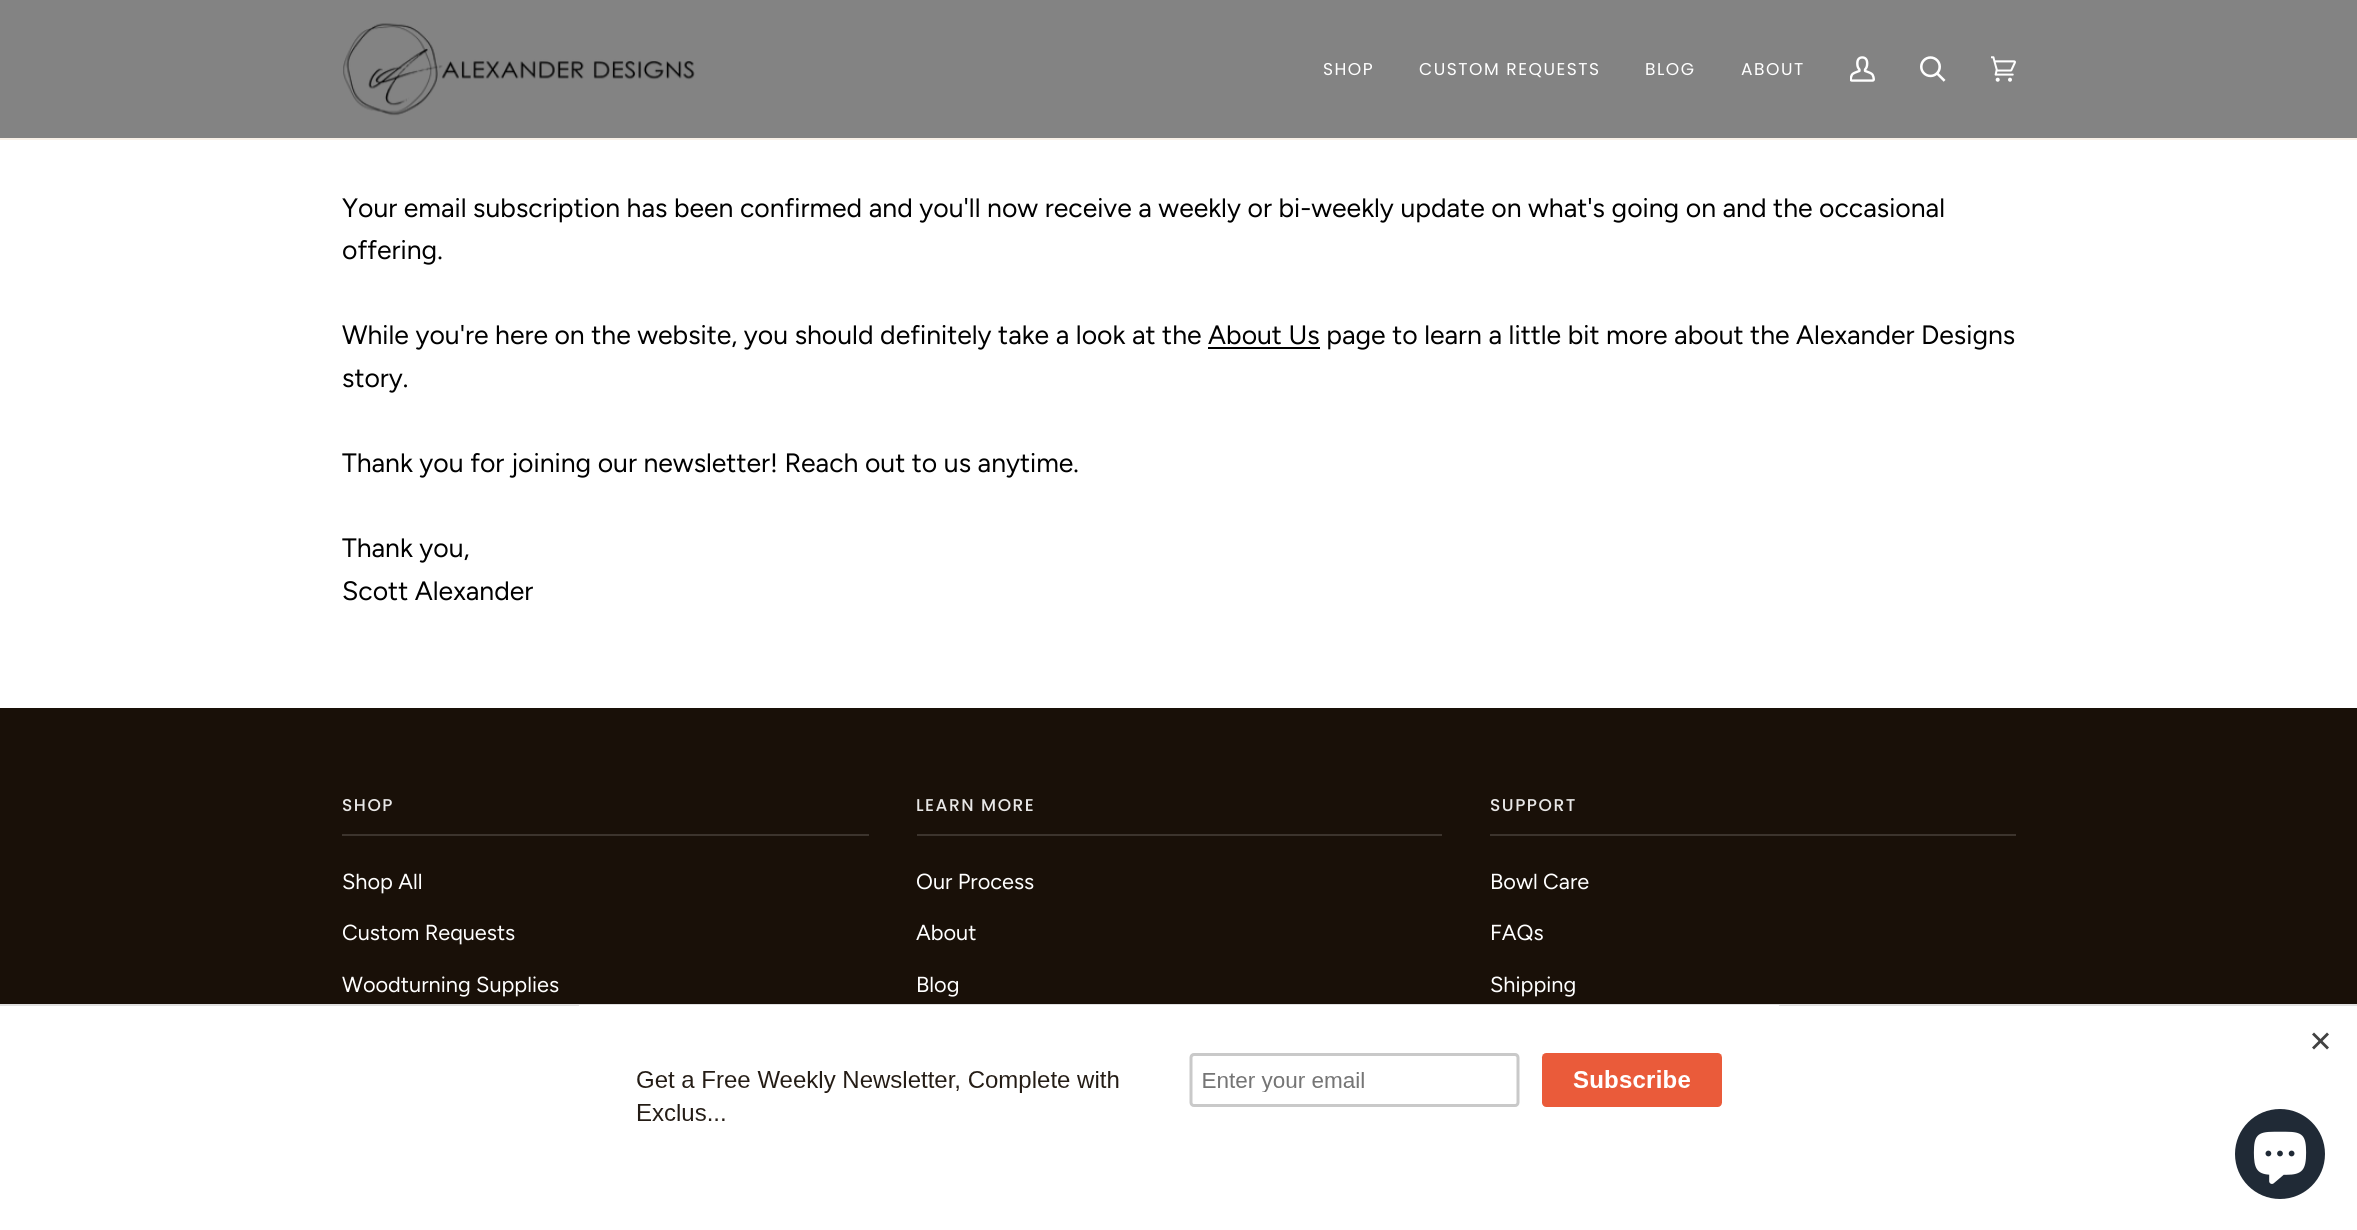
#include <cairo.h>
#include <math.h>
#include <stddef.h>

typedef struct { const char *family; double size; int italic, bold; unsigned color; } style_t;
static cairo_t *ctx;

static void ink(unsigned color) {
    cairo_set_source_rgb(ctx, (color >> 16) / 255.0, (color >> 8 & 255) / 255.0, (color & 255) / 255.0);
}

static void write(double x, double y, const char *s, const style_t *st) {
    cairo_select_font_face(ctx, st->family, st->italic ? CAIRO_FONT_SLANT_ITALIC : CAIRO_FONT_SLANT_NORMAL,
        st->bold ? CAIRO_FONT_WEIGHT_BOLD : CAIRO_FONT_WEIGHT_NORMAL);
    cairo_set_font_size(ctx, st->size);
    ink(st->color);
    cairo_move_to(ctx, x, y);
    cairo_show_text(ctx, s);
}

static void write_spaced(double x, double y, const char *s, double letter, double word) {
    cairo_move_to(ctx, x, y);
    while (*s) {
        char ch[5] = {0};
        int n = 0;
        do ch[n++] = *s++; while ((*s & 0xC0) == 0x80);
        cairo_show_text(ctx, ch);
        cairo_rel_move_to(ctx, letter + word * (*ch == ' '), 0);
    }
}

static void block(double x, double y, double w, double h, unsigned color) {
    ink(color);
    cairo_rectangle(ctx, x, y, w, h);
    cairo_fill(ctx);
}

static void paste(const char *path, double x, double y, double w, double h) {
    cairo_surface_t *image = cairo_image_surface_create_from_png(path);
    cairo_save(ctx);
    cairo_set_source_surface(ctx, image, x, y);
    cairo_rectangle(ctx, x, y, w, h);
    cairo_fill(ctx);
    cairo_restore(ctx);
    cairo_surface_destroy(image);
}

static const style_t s1 = {"Figtree", 26.58, 0, 0, 0x000000};
static const style_t s2 = {"Figtree", 21.75, 0, 0, 0xffffff};

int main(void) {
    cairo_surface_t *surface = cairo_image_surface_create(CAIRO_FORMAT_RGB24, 2357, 1230);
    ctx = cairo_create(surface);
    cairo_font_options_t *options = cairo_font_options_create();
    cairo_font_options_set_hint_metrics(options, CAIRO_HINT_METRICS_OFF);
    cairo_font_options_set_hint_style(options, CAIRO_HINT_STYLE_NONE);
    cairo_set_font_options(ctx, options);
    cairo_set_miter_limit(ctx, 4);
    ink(0xffffff);
    cairo_paint(ctx);
    block(0, 138, 2357, 2, 0xf8f0e7);
    block(0, 0, 2357, 138, 0x838383);
    paste("pic1.png", 343, 23, 352, 93);
    cairo_select_font_face(ctx, "Poppins", CAIRO_FONT_SLANT_NORMAL, CAIRO_FONT_WEIGHT_NORMAL);
    cairo_set_font_size(ctx, 17.1);
    ink(0xffffff);
    write_spaced(1323, 75, "SHOP", 1.5, 0);
    write_spaced(1419, 75, "CUSTOM REQUESTS", 1.5, 0);
    write_spaced(1645, 75, "BLOG", 1.5, 0);
    write_spaced(1741, 75, "ABOUT", 1.5, 0);
    paste("pic2.png", 1850, 56, 25, 26);
    paste("pic3.png", 1920, 56, 26, 26);
    paste("pic4.png", 1991, 56, 25, 26);
    write(342, 217, "Your email subscription has been confirmed and you'll now receive a weekly or bi-weekly update on what's going on and the occasional", &s1);
    write(342, 259, "offering.", &s1);
    write(342, 344, "While you're here on the website, you should definitely take a look at the About Us page to learn a little bit more about the Alexander Designs", &s1);
    block(1208, 347, 112, 2, 0x000000);
    write(342, 387, "story.", &s1);
    write(342, 472, "Thank you for joining our newsletter! Reach out to us anytime.", &s1);
    write(342, 557, "Thank you,", &s1);
    write(342, 600, "Scott Alexander", &s1);
    block(0, 708, 2357, 296, 0x191008);
    block(342, 834, 527, 2, 0x3c342d);
    cairo_select_font_face(ctx, "Poppins Medium", CAIRO_FONT_SLANT_NORMAL, CAIRO_FONT_WEIGHT_NORMAL);
    cairo_set_font_size(ctx, 17.1);
    ink(0xe8e7e6);
    write_spaced(342, 811, "SHOP", 1.5, 0);
    write(342, 889, "Shop All", &s2);
    write(342, 940, "Custom Requests", &s2);
    write(342, 992, "Woodturning Supplies", &s2);
    block(917, 834, 525, 2, 0x3c342d);
    cairo_select_font_face(ctx, "Poppins Medium", CAIRO_FONT_SLANT_NORMAL, CAIRO_FONT_WEIGHT_NORMAL);
    cairo_set_font_size(ctx, 17.1);
    ink(0xe8e7e6);
    write_spaced(916, 811, "LEARN MORE", 1.5, 0);
    write(916, 889, "Our Process", &s2);
    write(916, 940, "About", &s2);
    write(916, 992, "Blog", &s2);
    block(1490, 834, 526, 2, 0x3c342d);
    cairo_select_font_face(ctx, "Poppins Medium", CAIRO_FONT_SLANT_NORMAL, CAIRO_FONT_WEIGHT_NORMAL);
    cairo_set_font_size(ctx, 17.1);
    ink(0xe8e7e6);
    write_spaced(1490, 811, "SUPPORT", 1.5, 0);
    write(1490, 889, "Bowl Care", &s2);
    write(1490, 940, "FAQs", &s2);
    write(1490, 992, "Shipping", &s2);
    block(0, 1004, 2357, 2, 0xe0e0e0);
    paste("pic5.png", 579, 1005, 1200, 116);
    ink(0x414141);
    cairo_new_path(ctx);
    cairo_move_to(ctx, 2327, 1032.5);
    cairo_line_to(ctx, 2329, 1034.5);
    cairo_line_to(ctx, 2314, 1049.5);
    cairo_line_to(ctx, 2312, 1047.5);
    cairo_close_path(ctx);
    cairo_fill(ctx);
    cairo_new_path(ctx);
    cairo_move_to(ctx, 2312, 1034.5);
    cairo_line_to(ctx, 2314, 1032.5);
    cairo_line_to(ctx, 2329, 1047.5);
    cairo_line_to(ctx, 2327, 1049.5);
    cairo_close_path(ctx);
    cairo_fill(ctx);
    ink(0x202a36);
    cairo_arc(ctx, 2280, 1154, 45, 0, 2 * M_PI);
    cairo_fill(ctx);
    paste("pic6.png", 2253, 1131, 54, 53);
    cairo_surface_write_to_png(surface, "screenshot.png");
    cairo_font_options_destroy(options);
    cairo_destroy(ctx);
    cairo_surface_destroy(surface);
    return 0;
}
